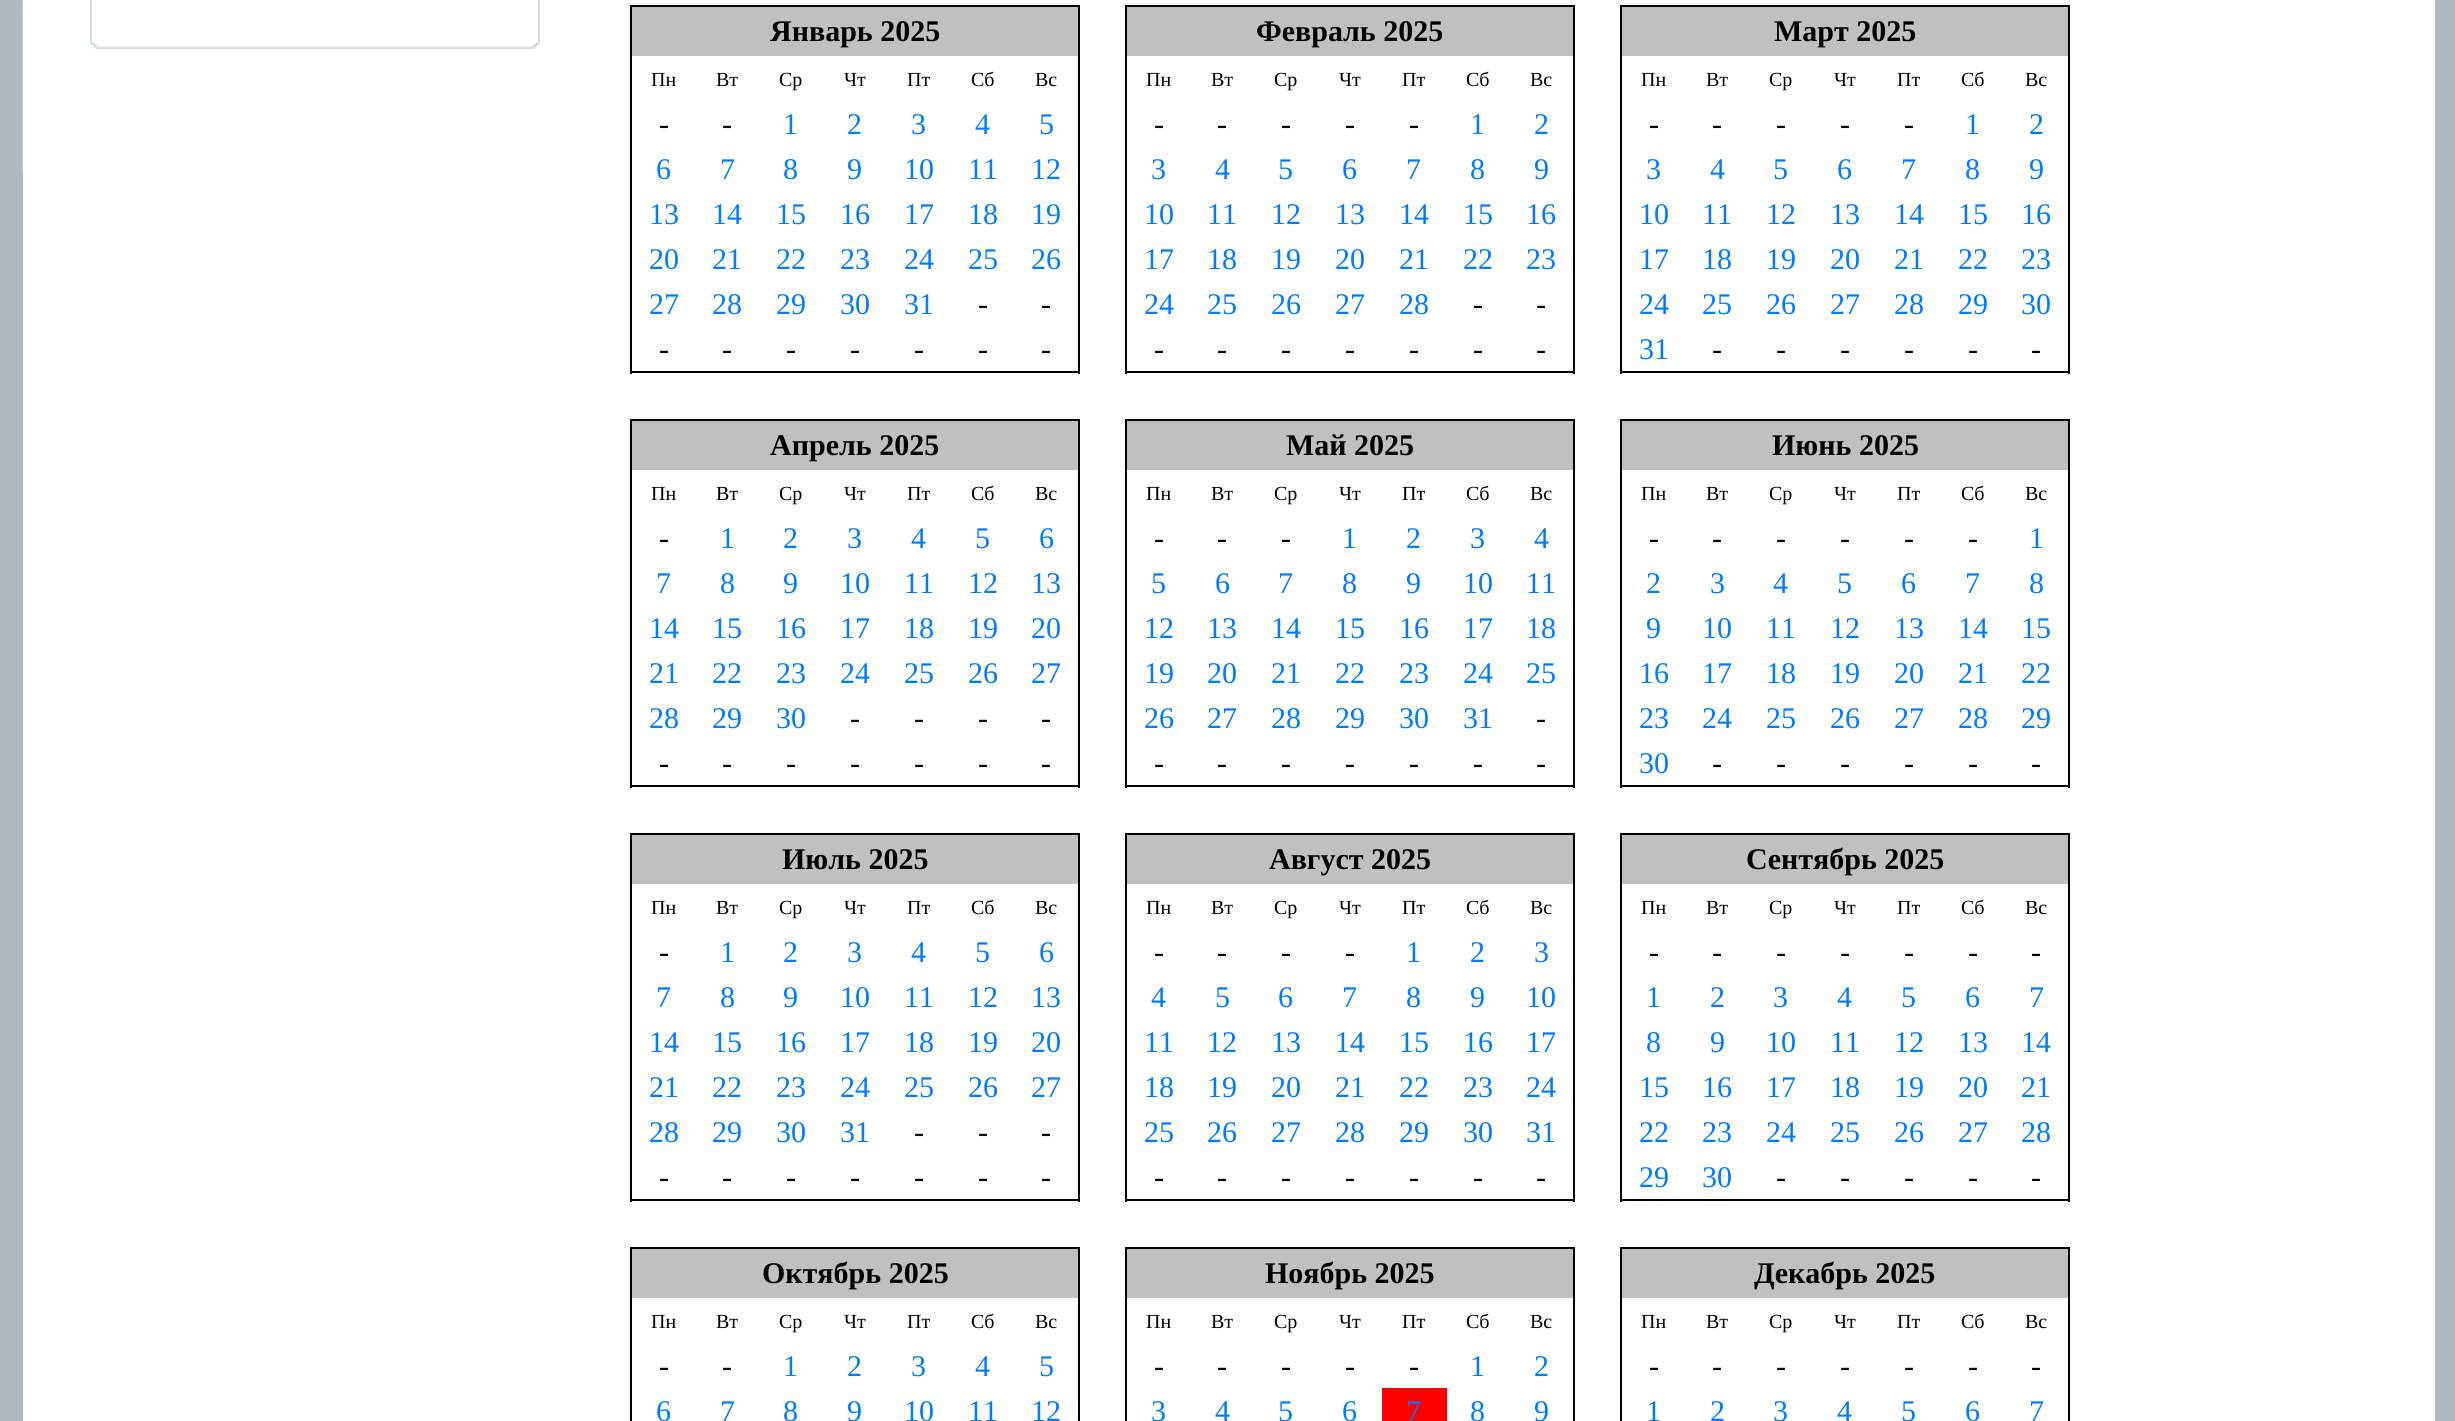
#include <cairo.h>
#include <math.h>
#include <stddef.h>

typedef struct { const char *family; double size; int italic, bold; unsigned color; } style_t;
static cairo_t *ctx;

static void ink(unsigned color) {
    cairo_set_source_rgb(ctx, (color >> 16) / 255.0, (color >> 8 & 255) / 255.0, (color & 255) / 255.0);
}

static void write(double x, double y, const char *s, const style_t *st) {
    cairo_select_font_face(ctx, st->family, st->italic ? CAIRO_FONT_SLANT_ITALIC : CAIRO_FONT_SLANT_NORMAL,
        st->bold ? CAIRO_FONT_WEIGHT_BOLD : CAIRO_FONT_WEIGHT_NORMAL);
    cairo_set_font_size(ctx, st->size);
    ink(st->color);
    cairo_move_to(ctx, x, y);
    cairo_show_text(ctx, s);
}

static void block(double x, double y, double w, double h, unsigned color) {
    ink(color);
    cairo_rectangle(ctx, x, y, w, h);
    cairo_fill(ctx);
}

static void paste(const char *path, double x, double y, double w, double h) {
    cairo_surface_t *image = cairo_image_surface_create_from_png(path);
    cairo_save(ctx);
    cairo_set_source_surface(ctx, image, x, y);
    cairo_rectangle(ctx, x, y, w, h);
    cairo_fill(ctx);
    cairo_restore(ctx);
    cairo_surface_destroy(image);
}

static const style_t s1 = {"Liberation Serif", 30, 0, 1, 0x000000};
static const style_t s2 = {"Liberation Serif", 20, 0, 0, 0x000000};
static const style_t s3 = {"Liberation Serif", 30, 0, 0, 0x000000};
static const style_t s4 = {"Liberation Serif", 30, 0, 0, 0x007bff};

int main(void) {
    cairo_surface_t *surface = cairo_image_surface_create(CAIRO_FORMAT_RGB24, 2455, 1421);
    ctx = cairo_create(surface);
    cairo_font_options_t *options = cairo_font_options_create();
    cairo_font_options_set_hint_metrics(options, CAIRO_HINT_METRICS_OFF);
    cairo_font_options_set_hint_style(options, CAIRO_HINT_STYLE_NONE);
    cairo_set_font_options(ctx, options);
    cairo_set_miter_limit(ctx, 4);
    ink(0xb1bac1);
    cairo_paint(ctx);
    block(23, 0, 2412, 1421, 0xffffff);
    paste("pic1.png", 22, 0, 1, 173);
    paste("pic2.png", 90, 43, 450, 6);
    block(538, 0, 2, 43, 0xd6dcdf);
    block(90, 0, 2, 43, 0xd6dcdf);
    block(630, 5, 450, 2, 0x000000);
    block(1078, 5, 2, 369, 0x000000);
    block(630, 371, 450, 2, 0x000000);
    block(630, 5, 2, 369, 0x000000);
    block(632, 7, 446, 49, 0xc0c0c0);
    write(770, 41, "Январь 2025", &s1);
    write(651, 86, "Пн", &s2);
    write(716, 86, "Вт", &s2);
    write(779, 86, "Ср", &s2);
    write(844, 86, "Чт", &s2);
    write(907, 86, "Пт", &s2);
    write(971, 86, "Сб", &s2);
    write(1035, 86, "Вс", &s2);
    write(659, 134, "-", &s3);
    write(722, 134, "-", &s3);
    write(783, 134, "1", &s4);
    write(847, 134, "2", &s4);
    write(911, 134, "3", &s4);
    write(975, 134, "4", &s4);
    write(1039, 134, "5", &s4);
    write(656, 179, "6", &s4);
    write(720, 179, "7", &s4);
    write(783, 179, "8", &s4);
    write(847, 179, "9", &s4);
    write(904, 179, "10", &s4);
    write(968, 179, "11", &s4);
    write(1031, 179, "12", &s4);
    write(649, 224, "13", &s4);
    write(712, 224, "14", &s4);
    write(776, 224, "15", &s4);
    write(840, 224, "16", &s4);
    write(904, 224, "17", &s4);
    write(968, 224, "18", &s4);
    write(1031, 224, "19", &s4);
    write(649, 269, "20", &s4);
    write(712, 269, "21", &s4);
    write(776, 269, "22", &s4);
    write(840, 269, "23", &s4);
    write(904, 269, "24", &s4);
    write(968, 269, "25", &s4);
    write(1031, 269, "26", &s4);
    write(649, 314, "27", &s4);
    write(712, 314, "28", &s4);
    write(776, 314, "29", &s4);
    write(840, 314, "30", &s4);
    write(904, 314, "31", &s4);
    write(978, 314, "-", &s3);
    write(1041, 314, "-", &s3);
    write(659, 359, "-", &s3);
    write(722, 359, "-", &s3);
    write(786, 359, "-", &s3);
    write(850, 359, "-", &s3);
    write(914, 359, "-", &s3);
    write(978, 359, "-", &s3);
    write(1041, 359, "-", &s3);
    block(1125, 5, 450, 2, 0x000000);
    block(1573, 5, 2, 369, 0x000000);
    block(1125, 371, 450, 2, 0x000000);
    block(1125, 5, 2, 369, 0x000000);
    block(1127, 7, 446, 49, 0xc0c0c0);
    write(1256, 41, "Февраль 2025", &s1);
    write(1146, 86, "Пн", &s2);
    write(1211, 86, "Вт", &s2);
    write(1274, 86, "Ср", &s2);
    write(1339, 86, "Чт", &s2);
    write(1402, 86, "Пт", &s2);
    write(1466, 86, "Сб", &s2);
    write(1530, 86, "Вс", &s2);
    write(1154, 134, "-", &s3);
    write(1217, 134, "-", &s3);
    write(1281, 134, "-", &s3);
    write(1345, 134, "-", &s3);
    write(1409, 134, "-", &s3);
    write(1470, 134, "1", &s4);
    write(1534, 134, "2", &s4);
    write(1151, 179, "3", &s4);
    write(1215, 179, "4", &s4);
    write(1278, 179, "5", &s4);
    write(1342, 179, "6", &s4);
    write(1406, 179, "7", &s4);
    write(1470, 179, "8", &s4);
    write(1534, 179, "9", &s4);
    write(1144, 224, "10", &s4);
    write(1207, 224, "11", &s4);
    write(1271, 224, "12", &s4);
    write(1335, 224, "13", &s4);
    write(1399, 224, "14", &s4);
    write(1463, 224, "15", &s4);
    write(1526, 224, "16", &s4);
    write(1144, 269, "17", &s4);
    write(1207, 269, "18", &s4);
    write(1271, 269, "19", &s4);
    write(1335, 269, "20", &s4);
    write(1399, 269, "21", &s4);
    write(1463, 269, "22", &s4);
    write(1526, 269, "23", &s4);
    write(1144, 314, "24", &s4);
    write(1207, 314, "25", &s4);
    write(1271, 314, "26", &s4);
    write(1335, 314, "27", &s4);
    write(1399, 314, "28", &s4);
    write(1473, 314, "-", &s3);
    write(1536, 314, "-", &s3);
    write(1154, 359, "-", &s3);
    write(1217, 359, "-", &s3);
    write(1281, 359, "-", &s3);
    write(1345, 359, "-", &s3);
    write(1409, 359, "-", &s3);
    write(1473, 359, "-", &s3);
    write(1536, 359, "-", &s3);
    block(1620, 5, 450, 2, 0x000000);
    block(2068, 5, 2, 369, 0x000000);
    block(1620, 371, 450, 2, 0x000000);
    block(1620, 5, 2, 369, 0x000000);
    block(1622, 7, 446, 49, 0xc0c0c0);
    write(1774, 41, "Март 2025", &s1);
    write(1641, 86, "Пн", &s2);
    write(1706, 86, "Вт", &s2);
    write(1769, 86, "Ср", &s2);
    write(1834, 86, "Чт", &s2);
    write(1897, 86, "Пт", &s2);
    write(1961, 86, "Сб", &s2);
    write(2025, 86, "Вс", &s2);
    write(1649, 134, "-", &s3);
    write(1712, 134, "-", &s3);
    write(1776, 134, "-", &s3);
    write(1840, 134, "-", &s3);
    write(1904, 134, "-", &s3);
    write(1965, 134, "1", &s4);
    write(2029, 134, "2", &s4);
    write(1646, 179, "3", &s4);
    write(1710, 179, "4", &s4);
    write(1773, 179, "5", &s4);
    write(1837, 179, "6", &s4);
    write(1901, 179, "7", &s4);
    write(1965, 179, "8", &s4);
    write(2029, 179, "9", &s4);
    write(1639, 224, "10", &s4);
    write(1702, 224, "11", &s4);
    write(1766, 224, "12", &s4);
    write(1830, 224, "13", &s4);
    write(1894, 224, "14", &s4);
    write(1958, 224, "15", &s4);
    write(2021, 224, "16", &s4);
    write(1639, 269, "17", &s4);
    write(1702, 269, "18", &s4);
    write(1766, 269, "19", &s4);
    write(1830, 269, "20", &s4);
    write(1894, 269, "21", &s4);
    write(1958, 269, "22", &s4);
    write(2021, 269, "23", &s4);
    write(1639, 314, "24", &s4);
    write(1702, 314, "25", &s4);
    write(1766, 314, "26", &s4);
    write(1830, 314, "27", &s4);
    write(1894, 314, "28", &s4);
    write(1958, 314, "29", &s4);
    write(2021, 314, "30", &s4);
    write(1639, 359, "31", &s4);
    write(1712, 359, "-", &s3);
    write(1776, 359, "-", &s3);
    write(1840, 359, "-", &s3);
    write(1904, 359, "-", &s3);
    write(1968, 359, "-", &s3);
    write(2031, 359, "-", &s3);
    block(630, 419, 450, 2, 0x000000);
    block(1078, 419, 2, 369, 0x000000);
    block(630, 785, 450, 2, 0x000000);
    block(630, 419, 2, 369, 0x000000);
    block(632, 421, 446, 49, 0xc0c0c0);
    write(770, 455, "Апрель 2025", &s1);
    write(651, 500, "Пн", &s2);
    write(716, 500, "Вт", &s2);
    write(779, 500, "Ср", &s2);
    write(844, 500, "Чт", &s2);
    write(907, 500, "Пт", &s2);
    write(971, 500, "Сб", &s2);
    write(1035, 500, "Вс", &s2);
    write(659, 548, "-", &s3);
    write(720, 548, "1", &s4);
    write(783, 548, "2", &s4);
    write(847, 548, "3", &s4);
    write(911, 548, "4", &s4);
    write(975, 548, "5", &s4);
    write(1039, 548, "6", &s4);
    write(656, 593, "7", &s4);
    write(720, 593, "8", &s4);
    write(783, 593, "9", &s4);
    write(840, 593, "10", &s4);
    write(904, 593, "11", &s4);
    write(968, 593, "12", &s4);
    write(1031, 593, "13", &s4);
    write(649, 638, "14", &s4);
    write(712, 638, "15", &s4);
    write(776, 638, "16", &s4);
    write(840, 638, "17", &s4);
    write(904, 638, "18", &s4);
    write(968, 638, "19", &s4);
    write(1031, 638, "20", &s4);
    write(649, 683, "21", &s4);
    write(712, 683, "22", &s4);
    write(776, 683, "23", &s4);
    write(840, 683, "24", &s4);
    write(904, 683, "25", &s4);
    write(968, 683, "26", &s4);
    write(1031, 683, "27", &s4);
    write(649, 728, "28", &s4);
    write(712, 728, "29", &s4);
    write(776, 728, "30", &s4);
    write(850, 728, "-", &s3);
    write(914, 728, "-", &s3);
    write(978, 728, "-", &s3);
    write(1041, 728, "-", &s3);
    write(659, 773, "-", &s3);
    write(722, 773, "-", &s3);
    write(786, 773, "-", &s3);
    write(850, 773, "-", &s3);
    write(914, 773, "-", &s3);
    write(978, 773, "-", &s3);
    write(1041, 773, "-", &s3);
    block(1125, 419, 450, 2, 0x000000);
    block(1573, 419, 2, 369, 0x000000);
    block(1125, 785, 450, 2, 0x000000);
    block(1125, 419, 2, 369, 0x000000);
    block(1127, 421, 446, 49, 0xc0c0c0);
    write(1286, 455, "Май 2025", &s1);
    write(1146, 500, "Пн", &s2);
    write(1211, 500, "Вт", &s2);
    write(1274, 500, "Ср", &s2);
    write(1339, 500, "Чт", &s2);
    write(1402, 500, "Пт", &s2);
    write(1466, 500, "Сб", &s2);
    write(1530, 500, "Вс", &s2);
    write(1154, 548, "-", &s3);
    write(1217, 548, "-", &s3);
    write(1281, 548, "-", &s3);
    write(1342, 548, "1", &s4);
    write(1406, 548, "2", &s4);
    write(1470, 548, "3", &s4);
    write(1534, 548, "4", &s4);
    write(1151, 593, "5", &s4);
    write(1215, 593, "6", &s4);
    write(1278, 593, "7", &s4);
    write(1342, 593, "8", &s4);
    write(1406, 593, "9", &s4);
    write(1463, 593, "10", &s4);
    write(1526, 593, "11", &s4);
    write(1144, 638, "12", &s4);
    write(1207, 638, "13", &s4);
    write(1271, 638, "14", &s4);
    write(1335, 638, "15", &s4);
    write(1399, 638, "16", &s4);
    write(1463, 638, "17", &s4);
    write(1526, 638, "18", &s4);
    write(1144, 683, "19", &s4);
    write(1207, 683, "20", &s4);
    write(1271, 683, "21", &s4);
    write(1335, 683, "22", &s4);
    write(1399, 683, "23", &s4);
    write(1463, 683, "24", &s4);
    write(1526, 683, "25", &s4);
    write(1144, 728, "26", &s4);
    write(1207, 728, "27", &s4);
    write(1271, 728, "28", &s4);
    write(1335, 728, "29", &s4);
    write(1399, 728, "30", &s4);
    write(1463, 728, "31", &s4);
    write(1536, 728, "-", &s3);
    write(1154, 773, "-", &s3);
    write(1217, 773, "-", &s3);
    write(1281, 773, "-", &s3);
    write(1345, 773, "-", &s3);
    write(1409, 773, "-", &s3);
    write(1473, 773, "-", &s3);
    write(1536, 773, "-", &s3);
    block(1620, 419, 450, 2, 0x000000);
    block(2068, 419, 2, 369, 0x000000);
    block(1620, 785, 450, 2, 0x000000);
    block(1620, 419, 2, 369, 0x000000);
    block(1622, 421, 446, 49, 0xc0c0c0);
    write(1772, 455, "Июнь 2025", &s1);
    write(1641, 500, "Пн", &s2);
    write(1706, 500, "Вт", &s2);
    write(1769, 500, "Ср", &s2);
    write(1834, 500, "Чт", &s2);
    write(1897, 500, "Пт", &s2);
    write(1961, 500, "Сб", &s2);
    write(2025, 500, "Вс", &s2);
    write(1649, 548, "-", &s3);
    write(1712, 548, "-", &s3);
    write(1776, 548, "-", &s3);
    write(1840, 548, "-", &s3);
    write(1904, 548, "-", &s3);
    write(1968, 548, "-", &s3);
    write(2029, 548, "1", &s4);
    write(1646, 593, "2", &s4);
    write(1710, 593, "3", &s4);
    write(1773, 593, "4", &s4);
    write(1837, 593, "5", &s4);
    write(1901, 593, "6", &s4);
    write(1965, 593, "7", &s4);
    write(2029, 593, "8", &s4);
    write(1646, 638, "9", &s4);
    write(1702, 638, "10", &s4);
    write(1766, 638, "11", &s4);
    write(1830, 638, "12", &s4);
    write(1894, 638, "13", &s4);
    write(1958, 638, "14", &s4);
    write(2021, 638, "15", &s4);
    write(1639, 683, "16", &s4);
    write(1702, 683, "17", &s4);
    write(1766, 683, "18", &s4);
    write(1830, 683, "19", &s4);
    write(1894, 683, "20", &s4);
    write(1958, 683, "21", &s4);
    write(2021, 683, "22", &s4);
    write(1639, 728, "23", &s4);
    write(1702, 728, "24", &s4);
    write(1766, 728, "25", &s4);
    write(1830, 728, "26", &s4);
    write(1894, 728, "27", &s4);
    write(1958, 728, "28", &s4);
    write(2021, 728, "29", &s4);
    write(1639, 773, "30", &s4);
    write(1712, 773, "-", &s3);
    write(1776, 773, "-", &s3);
    write(1840, 773, "-", &s3);
    write(1904, 773, "-", &s3);
    write(1968, 773, "-", &s3);
    write(2031, 773, "-", &s3);
    block(630, 833, 450, 2, 0x000000);
    block(1078, 833, 2, 369, 0x000000);
    block(630, 1199, 450, 2, 0x000000);
    block(630, 833, 2, 369, 0x000000);
    block(632, 835, 446, 49, 0xc0c0c0);
    write(782, 869, "Июль 2025", &s1);
    write(651, 914, "Пн", &s2);
    write(716, 914, "Вт", &s2);
    write(779, 914, "Ср", &s2);
    write(844, 914, "Чт", &s2);
    write(907, 914, "Пт", &s2);
    write(971, 914, "Сб", &s2);
    write(1035, 914, "Вс", &s2);
    write(659, 962, "-", &s3);
    write(720, 962, "1", &s4);
    write(783, 962, "2", &s4);
    write(847, 962, "3", &s4);
    write(911, 962, "4", &s4);
    write(975, 962, "5", &s4);
    write(1039, 962, "6", &s4);
    write(656, 1007, "7", &s4);
    write(720, 1007, "8", &s4);
    write(783, 1007, "9", &s4);
    write(840, 1007, "10", &s4);
    write(904, 1007, "11", &s4);
    write(968, 1007, "12", &s4);
    write(1031, 1007, "13", &s4);
    write(649, 1052, "14", &s4);
    write(712, 1052, "15", &s4);
    write(776, 1052, "16", &s4);
    write(840, 1052, "17", &s4);
    write(904, 1052, "18", &s4);
    write(968, 1052, "19", &s4);
    write(1031, 1052, "20", &s4);
    write(649, 1097, "21", &s4);
    write(712, 1097, "22", &s4);
    write(776, 1097, "23", &s4);
    write(840, 1097, "24", &s4);
    write(904, 1097, "25", &s4);
    write(968, 1097, "26", &s4);
    write(1031, 1097, "27", &s4);
    write(649, 1142, "28", &s4);
    write(712, 1142, "29", &s4);
    write(776, 1142, "30", &s4);
    write(840, 1142, "31", &s4);
    write(914, 1142, "-", &s3);
    write(978, 1142, "-", &s3);
    write(1041, 1142, "-", &s3);
    write(659, 1187, "-", &s3);
    write(722, 1187, "-", &s3);
    write(786, 1187, "-", &s3);
    write(850, 1187, "-", &s3);
    write(914, 1187, "-", &s3);
    write(978, 1187, "-", &s3);
    write(1041, 1187, "-", &s3);
    block(1125, 833, 450, 2, 0x000000);
    block(1573, 833, 2, 369, 0x000000);
    block(1125, 1199, 450, 2, 0x000000);
    block(1125, 833, 2, 369, 0x000000);
    block(1127, 835, 446, 49, 0xc0c0c0);
    write(1269, 869, "Август 2025", &s1);
    write(1146, 914, "Пн", &s2);
    write(1211, 914, "Вт", &s2);
    write(1274, 914, "Ср", &s2);
    write(1339, 914, "Чт", &s2);
    write(1402, 914, "Пт", &s2);
    write(1466, 914, "Сб", &s2);
    write(1530, 914, "Вс", &s2);
    write(1154, 962, "-", &s3);
    write(1217, 962, "-", &s3);
    write(1281, 962, "-", &s3);
    write(1345, 962, "-", &s3);
    write(1406, 962, "1", &s4);
    write(1470, 962, "2", &s4);
    write(1534, 962, "3", &s4);
    write(1151, 1007, "4", &s4);
    write(1215, 1007, "5", &s4);
    write(1278, 1007, "6", &s4);
    write(1342, 1007, "7", &s4);
    write(1406, 1007, "8", &s4);
    write(1470, 1007, "9", &s4);
    write(1526, 1007, "10", &s4);
    write(1144, 1052, "11", &s4);
    write(1207, 1052, "12", &s4);
    write(1271, 1052, "13", &s4);
    write(1335, 1052, "14", &s4);
    write(1399, 1052, "15", &s4);
    write(1463, 1052, "16", &s4);
    write(1526, 1052, "17", &s4);
    write(1144, 1097, "18", &s4);
    write(1207, 1097, "19", &s4);
    write(1271, 1097, "20", &s4);
    write(1335, 1097, "21", &s4);
    write(1399, 1097, "22", &s4);
    write(1463, 1097, "23", &s4);
    write(1526, 1097, "24", &s4);
    write(1144, 1142, "25", &s4);
    write(1207, 1142, "26", &s4);
    write(1271, 1142, "27", &s4);
    write(1335, 1142, "28", &s4);
    write(1399, 1142, "29", &s4);
    write(1463, 1142, "30", &s4);
    write(1526, 1142, "31", &s4);
    write(1154, 1187, "-", &s3);
    write(1217, 1187, "-", &s3);
    write(1281, 1187, "-", &s3);
    write(1345, 1187, "-", &s3);
    write(1409, 1187, "-", &s3);
    write(1473, 1187, "-", &s3);
    write(1536, 1187, "-", &s3);
    block(1620, 833, 450, 2, 0x000000);
    block(2068, 833, 2, 369, 0x000000);
    block(1620, 1199, 450, 2, 0x000000);
    block(1620, 833, 2, 369, 0x000000);
    block(1622, 835, 446, 49, 0xc0c0c0);
    write(1746, 869, "Сентябрь 2025", &s1);
    write(1641, 914, "Пн", &s2);
    write(1706, 914, "Вт", &s2);
    write(1769, 914, "Ср", &s2);
    write(1834, 914, "Чт", &s2);
    write(1897, 914, "Пт", &s2);
    write(1961, 914, "Сб", &s2);
    write(2025, 914, "Вс", &s2);
    write(1649, 962, "-", &s3);
    write(1712, 962, "-", &s3);
    write(1776, 962, "-", &s3);
    write(1840, 962, "-", &s3);
    write(1904, 962, "-", &s3);
    write(1968, 962, "-", &s3);
    write(2031, 962, "-", &s3);
    write(1646, 1007, "1", &s4);
    write(1710, 1007, "2", &s4);
    write(1773, 1007, "3", &s4);
    write(1837, 1007, "4", &s4);
    write(1901, 1007, "5", &s4);
    write(1965, 1007, "6", &s4);
    write(2029, 1007, "7", &s4);
    write(1646, 1052, "8", &s4);
    write(1710, 1052, "9", &s4);
    write(1766, 1052, "10", &s4);
    write(1830, 1052, "11", &s4);
    write(1894, 1052, "12", &s4);
    write(1958, 1052, "13", &s4);
    write(2021, 1052, "14", &s4);
    write(1639, 1097, "15", &s4);
    write(1702, 1097, "16", &s4);
    write(1766, 1097, "17", &s4);
    write(1830, 1097, "18", &s4);
    write(1894, 1097, "19", &s4);
    write(1958, 1097, "20", &s4);
    write(2021, 1097, "21", &s4);
    write(1639, 1142, "22", &s4);
    write(1702, 1142, "23", &s4);
    write(1766, 1142, "24", &s4);
    write(1830, 1142, "25", &s4);
    write(1894, 1142, "26", &s4);
    write(1958, 1142, "27", &s4);
    write(2021, 1142, "28", &s4);
    write(1639, 1187, "29", &s4);
    write(1702, 1187, "30", &s4);
    write(1776, 1187, "-", &s3);
    write(1840, 1187, "-", &s3);
    write(1904, 1187, "-", &s3);
    write(1968, 1187, "-", &s3);
    write(2031, 1187, "-", &s3);
    block(630, 1247, 450, 2, 0x000000);
    block(1078, 1247, 2, 174, 0x000000);
    block(630, 1247, 2, 174, 0x000000);
    block(632, 1249, 446, 49, 0xc0c0c0);
    write(762, 1283, "Октябрь 2025", &s1);
    write(651, 1328, "Пн", &s2);
    write(716, 1328, "Вт", &s2);
    write(779, 1328, "Ср", &s2);
    write(844, 1328, "Чт", &s2);
    write(907, 1328, "Пт", &s2);
    write(971, 1328, "Сб", &s2);
    write(1035, 1328, "Вс", &s2);
    write(659, 1376, "-", &s3);
    write(722, 1376, "-", &s3);
    write(783, 1376, "1", &s4);
    write(847, 1376, "2", &s4);
    write(911, 1376, "3", &s4);
    write(975, 1376, "4", &s4);
    write(1039, 1376, "5", &s4);
    write(656, 1421, "6", &s4);
    write(720, 1421, "7", &s4);
    write(783, 1421, "8", &s4);
    write(847, 1421, "9", &s4);
    write(904, 1421, "10", &s4);
    write(968, 1421, "11", &s4);
    write(1031, 1421, "12", &s4);
    block(1125, 1247, 450, 2, 0x000000);
    block(1573, 1247, 2, 174, 0x000000);
    block(1125, 1247, 2, 174, 0x000000);
    block(1127, 1249, 446, 49, 0xc0c0c0);
    write(1265, 1283, "Ноябрь 2025", &s1);
    write(1146, 1328, "Пн", &s2);
    write(1211, 1328, "Вт", &s2);
    write(1274, 1328, "Ср", &s2);
    write(1339, 1328, "Чт", &s2);
    write(1402, 1328, "Пт", &s2);
    write(1466, 1328, "Сб", &s2);
    write(1530, 1328, "Вс", &s2);
    write(1154, 1376, "-", &s3);
    write(1217, 1376, "-", &s3);
    write(1281, 1376, "-", &s3);
    write(1345, 1376, "-", &s3);
    write(1409, 1376, "-", &s3);
    write(1470, 1376, "1", &s4);
    write(1534, 1376, "2", &s4);
    write(1151, 1421, "3", &s4);
    write(1215, 1421, "4", &s4);
    write(1278, 1421, "5", &s4);
    write(1342, 1421, "6", &s4);
    block(1382, 1388, 65, 33, 0xff0000);
    write(1406, 1421, "7", &s4);
    write(1470, 1421, "8", &s4);
    write(1534, 1421, "9", &s4);
    block(1620, 1247, 450, 2, 0x000000);
    block(2068, 1247, 2, 174, 0x000000);
    block(1620, 1247, 2, 174, 0x000000);
    block(1622, 1249, 446, 49, 0xc0c0c0);
    write(1754, 1283, "Декабрь 2025", &s1);
    write(1641, 1328, "Пн", &s2);
    write(1706, 1328, "Вт", &s2);
    write(1769, 1328, "Ср", &s2);
    write(1834, 1328, "Чт", &s2);
    write(1897, 1328, "Пт", &s2);
    write(1961, 1328, "Сб", &s2);
    write(2025, 1328, "Вс", &s2);
    write(1649, 1376, "-", &s3);
    write(1712, 1376, "-", &s3);
    write(1776, 1376, "-", &s3);
    write(1840, 1376, "-", &s3);
    write(1904, 1376, "-", &s3);
    write(1968, 1376, "-", &s3);
    write(2031, 1376, "-", &s3);
    write(1646, 1421, "1", &s4);
    write(1710, 1421, "2", &s4);
    write(1773, 1421, "3", &s4);
    write(1837, 1421, "4", &s4);
    write(1901, 1421, "5", &s4);
    write(1965, 1421, "6", &s4);
    write(2029, 1421, "7", &s4);
    cairo_surface_write_to_png(surface, "screenshot.png");
    cairo_font_options_destroy(options);
    cairo_destroy(ctx);
    cairo_surface_destroy(surface);
    return 0;
}
